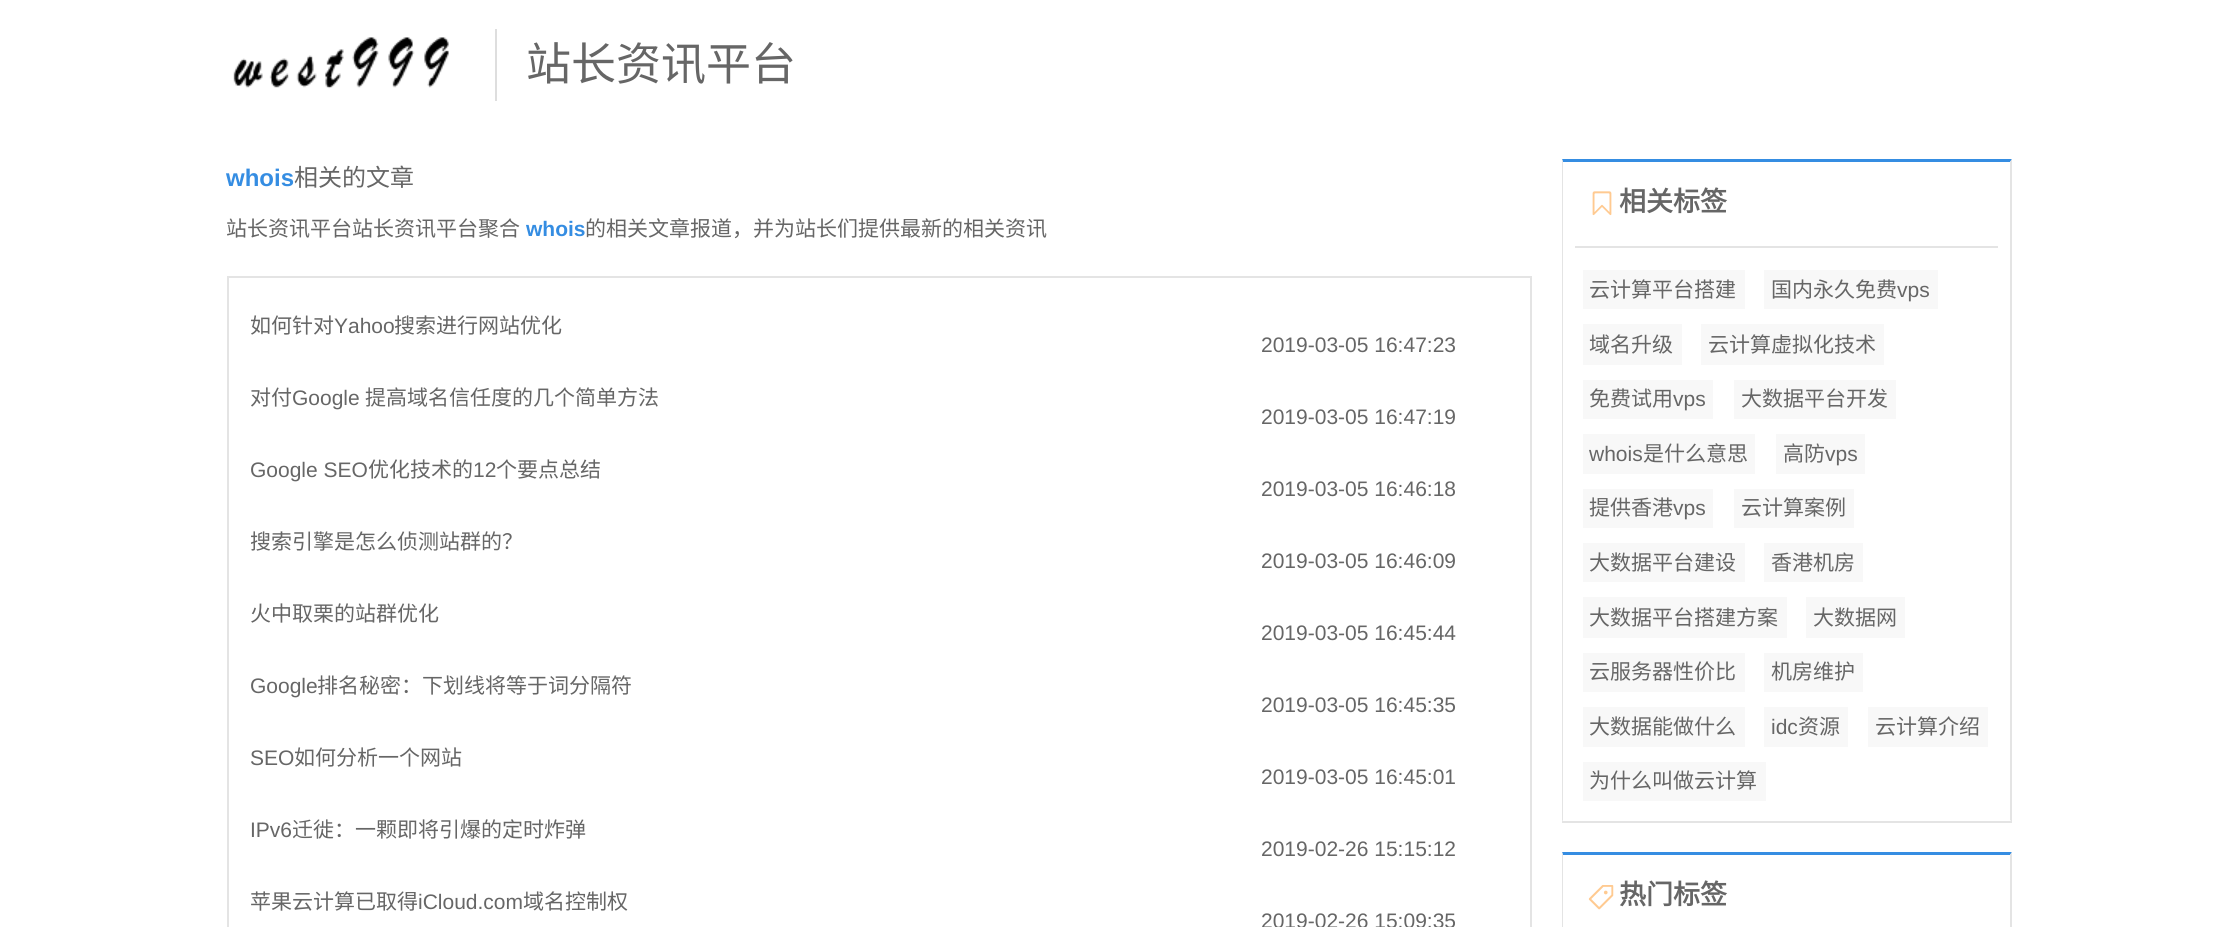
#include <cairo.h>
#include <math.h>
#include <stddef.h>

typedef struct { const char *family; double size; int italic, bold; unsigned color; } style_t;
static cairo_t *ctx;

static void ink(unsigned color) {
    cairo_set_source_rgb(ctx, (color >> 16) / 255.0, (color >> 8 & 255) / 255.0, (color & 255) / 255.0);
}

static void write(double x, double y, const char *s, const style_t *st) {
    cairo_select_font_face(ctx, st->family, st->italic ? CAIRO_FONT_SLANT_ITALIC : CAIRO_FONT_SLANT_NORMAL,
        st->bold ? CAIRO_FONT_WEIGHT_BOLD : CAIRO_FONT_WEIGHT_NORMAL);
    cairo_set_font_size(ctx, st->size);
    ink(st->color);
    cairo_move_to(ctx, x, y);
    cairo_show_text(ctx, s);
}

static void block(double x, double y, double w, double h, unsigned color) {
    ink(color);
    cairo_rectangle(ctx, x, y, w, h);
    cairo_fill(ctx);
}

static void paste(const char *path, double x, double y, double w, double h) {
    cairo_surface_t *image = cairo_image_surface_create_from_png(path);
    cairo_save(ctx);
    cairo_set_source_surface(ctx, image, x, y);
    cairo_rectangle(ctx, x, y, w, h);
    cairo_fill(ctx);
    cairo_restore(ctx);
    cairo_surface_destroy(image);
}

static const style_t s1 = {"Noto Sans CJK SC", 45, 0, 0, 0x666666};
static const style_t s2 = {"Liberation Sans", 24, 0, 1, 0x358de2};
static const style_t s3 = {"Noto Sans CJK SC", 24, 0, 0, 0x666666};
static const style_t s4 = {"Noto Sans CJK SC", 21, 0, 0, 0x666666};
static const style_t s5 = {"Liberation Sans", 21, 0, 1, 0x358de2};
static const style_t s6 = {"Liberation Sans", 21, 0, 0, 0x666666};
static const style_t s7 = {"Noto Sans CJK SC", 27, 0, 1, 0x666666};

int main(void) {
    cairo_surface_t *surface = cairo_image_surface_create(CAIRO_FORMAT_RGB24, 2236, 927);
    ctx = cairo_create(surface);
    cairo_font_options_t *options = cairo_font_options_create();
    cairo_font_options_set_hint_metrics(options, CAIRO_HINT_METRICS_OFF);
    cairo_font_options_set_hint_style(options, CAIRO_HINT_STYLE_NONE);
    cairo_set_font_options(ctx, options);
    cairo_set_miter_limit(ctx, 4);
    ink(0xffffff);
    cairo_paint(ctx);
    paste("pic1.png", 233, 37, 216, 52);
    block(495, 29, 2, 72, 0xdedede);
    write(526, 80, "站长资讯平台", &s1);
    write(226, 186, "whois", &s2);
    write(294, 186, "相关的文章", &s3);
    write(226, 236, "站长资讯平台站长资讯平台聚合", &s4);
    write(526, 236, "whois", &s5);
    write(585, 236, "的相关文章报道，并为站长们提供最新的相关资讯", &s4);
    cairo_rectangle(ctx, 228, 277, 1303, 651);
    ink(0xe4e4e4);
    cairo_stroke(ctx);
    cairo_save(ctx);
    cairo_rectangle(ctx, 251, 300, 1005, 53);
    cairo_clip(ctx);
    write(250, 333, "如何针对", &s4);
    cairo_restore(ctx);
    write(334, 333, "Yahoo", &s6);
    write(394, 333, "搜索进行网站优化", &s4);
    write(1261, 352, "2019-03-05 16:47:23", &s6);
    write(250, 405, "对付", &s4);
    write(292, 405, "Google", &s6);
    write(365, 405, "提高域名信任度的几个简单方法", &s4);
    write(1261, 424, "2019-03-05 16:47:19", &s6);
    cairo_save(ctx);
    cairo_rectangle(ctx, 251, 444, 1005, 53);
    cairo_clip(ctx);
    write(250, 477, "Google SEO", &s6);
    cairo_restore(ctx);
    write(368, 477, "优化技术的", &s4);
    write(473, 477, "12", &s6);
    write(496, 477, "个要点总结", &s4);
    write(1261, 496, "2019-03-05 16:46:18", &s6);
    cairo_save(ctx);
    cairo_rectangle(ctx, 251, 516, 1005, 53);
    cairo_clip(ctx);
    write(250, 549, "搜索引擎是怎么侦测站群的？", &s4);
    cairo_restore(ctx);
    write(1261, 568, "2019-03-05 16:46:09", &s6);
    write(250, 621, "火中取栗的站群优化", &s4);
    write(1261, 640, "2019-03-05 16:45:44", &s6);
    cairo_save(ctx);
    cairo_rectangle(ctx, 251, 660, 1005, 53);
    cairo_clip(ctx);
    write(250, 693, "Google", &s6);
    cairo_restore(ctx);
    write(317, 693, "排名秘密：下划线将等于词分隔符", &s4);
    write(1261, 712, "2019-03-05 16:45:35", &s6);
    write(250, 765, "SEO", &s6);
    write(294, 765, "如何分析一个网站", &s4);
    write(1261, 784, "2019-03-05 16:45:01", &s6);
    write(250, 837, "IPv6", &s6);
    write(292, 837, "迁徙：一颗即将引爆的定时炸弹", &s4);
    write(1261, 856, "2019-02-26 15:15:12", &s6);
    write(250, 909, "苹果云计算已取得", &s4);
    write(418, 909, "iCloud.com", &s6);
    write(523, 909, "域名控制权", &s4);
    write(1261, 928, "2019-02-26 15:09:35", &s6);
    ink(0x358de2);
    cairo_new_path(ctx);
    cairo_move_to(ctx, 1562, 159);
    cairo_line_to(ctx, 2012, 159);
    cairo_line_to(ctx, 2010, 162);
    cairo_line_to(ctx, 1563, 162);
    cairo_close_path(ctx);
    cairo_fill(ctx);
    ink(0xe4e4e4);
    cairo_new_path(ctx);
    cairo_move_to(ctx, 2012, 159);
    cairo_line_to(ctx, 2012, 822);
    cairo_line_to(ctx, 2010, 820);
    cairo_line_to(ctx, 2010, 162);
    cairo_close_path(ctx);
    cairo_fill(ctx);
    block(1562, 821, 450, 2, 0xe4e4e4);
    cairo_new_path(ctx);
    cairo_move_to(ctx, 1562, 822);
    cairo_line_to(ctx, 1562, 159);
    cairo_line_to(ctx, 1563, 162);
    cairo_line_to(ctx, 1563, 820);
    cairo_close_path(ctx);
    cairo_fill(ctx);
    block(1575, 246, 423, 2, 0xe4e4e4);
    paste("pic2.png", 1592, 191, 20, 25);
    write(1619, 211, "相关标签", &s7);
    block(1583, 270, 162, 39, 0xf8f8f8);
    write(1589, 297, "云计算平台搭建", &s4);
    block(1764, 270, 174, 39, 0xf8f8f8);
    write(1771, 297, "国内永久免费", &s4);
    write(1897, 297, "vps", &s6);
    block(1583, 324, 99, 41, 0xf8f8f8);
    write(1589, 352, "域名升级", &s4);
    block(1701, 324, 183, 41, 0xf8f8f8);
    write(1708, 352, "云计算虚拟化技术", &s4);
    block(1583, 380, 130, 39, 0xf8f8f8);
    write(1589, 406, "免费试用", &s4);
    write(1673, 406, "vps", &s6);
    block(1734, 380, 162, 39, 0xf8f8f8);
    write(1741, 406, "大数据平台开发", &s4);
    block(1583, 434, 172, 40, 0xf8f8f8);
    write(1589, 461, "whois", &s6);
    write(1643, 461, "是什么意思", &s4);
    block(1776, 434, 89, 40, 0xf8f8f8);
    write(1783, 461, "高防", &s4);
    write(1825, 461, "vps", &s6);
    block(1583, 489, 130, 39, 0xf8f8f8);
    write(1589, 515, "提供香港", &s4);
    write(1673, 515, "vps", &s6);
    block(1734, 489, 120, 39, 0xf8f8f8);
    write(1741, 515, "云计算案例", &s4);
    block(1583, 543, 162, 39, 0xf8f8f8);
    write(1589, 570, "大数据平台建设", &s4);
    block(1764, 543, 99, 39, 0xf8f8f8);
    write(1771, 570, "香港机房", &s4);
    block(1583, 597, 204, 41, 0xf8f8f8);
    write(1589, 625, "大数据平台搭建方案", &s4);
    block(1806, 597, 99, 41, 0xf8f8f8);
    write(1813, 625, "大数据网", &s4);
    block(1583, 653, 162, 39, 0xf8f8f8);
    write(1589, 679, "云服务器性价比", &s4);
    block(1764, 653, 99, 39, 0xf8f8f8);
    write(1771, 679, "机房维护", &s4);
    block(1583, 707, 162, 40, 0xf8f8f8);
    write(1589, 734, "大数据能做什么", &s4);
    block(1764, 707, 84, 40, 0xf8f8f8);
    write(1771, 734, "idc", &s6);
    write(1798, 734, "资源", &s4);
    block(1868, 707, 120, 40, 0xf8f8f8);
    write(1875, 734, "云计算介绍", &s4);
    block(1583, 762, 183, 39, 0xf8f8f8);
    write(1589, 788, "为什么叫做云计算", &s4);
    ink(0x358de2);
    cairo_new_path(ctx);
    cairo_move_to(ctx, 1562, 852);
    cairo_line_to(ctx, 2012, 852);
    cairo_line_to(ctx, 2010, 855);
    cairo_line_to(ctx, 1563, 855);
    cairo_close_path(ctx);
    cairo_fill(ctx);
    ink(0xe4e4e4);
    cairo_new_path(ctx);
    cairo_move_to(ctx, 2012, 852);
    cairo_line_to(ctx, 2012, 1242);
    cairo_line_to(ctx, 2010, 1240);
    cairo_line_to(ctx, 2010, 855);
    cairo_close_path(ctx);
    cairo_fill(ctx);
    cairo_new_path(ctx);
    cairo_move_to(ctx, 1562, 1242);
    cairo_line_to(ctx, 1562, 852);
    cairo_line_to(ctx, 1563, 855);
    cairo_line_to(ctx, 1563, 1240);
    cairo_close_path(ctx);
    cairo_fill(ctx);
    paste("pic3.png", 1588, 885, 26, 25);
    write(1619, 904, "热门标签", &s7);
    cairo_surface_write_to_png(surface, "screenshot.png");
    cairo_font_options_destroy(options);
    cairo_destroy(ctx);
    cairo_surface_destroy(surface);
    return 0;
}
